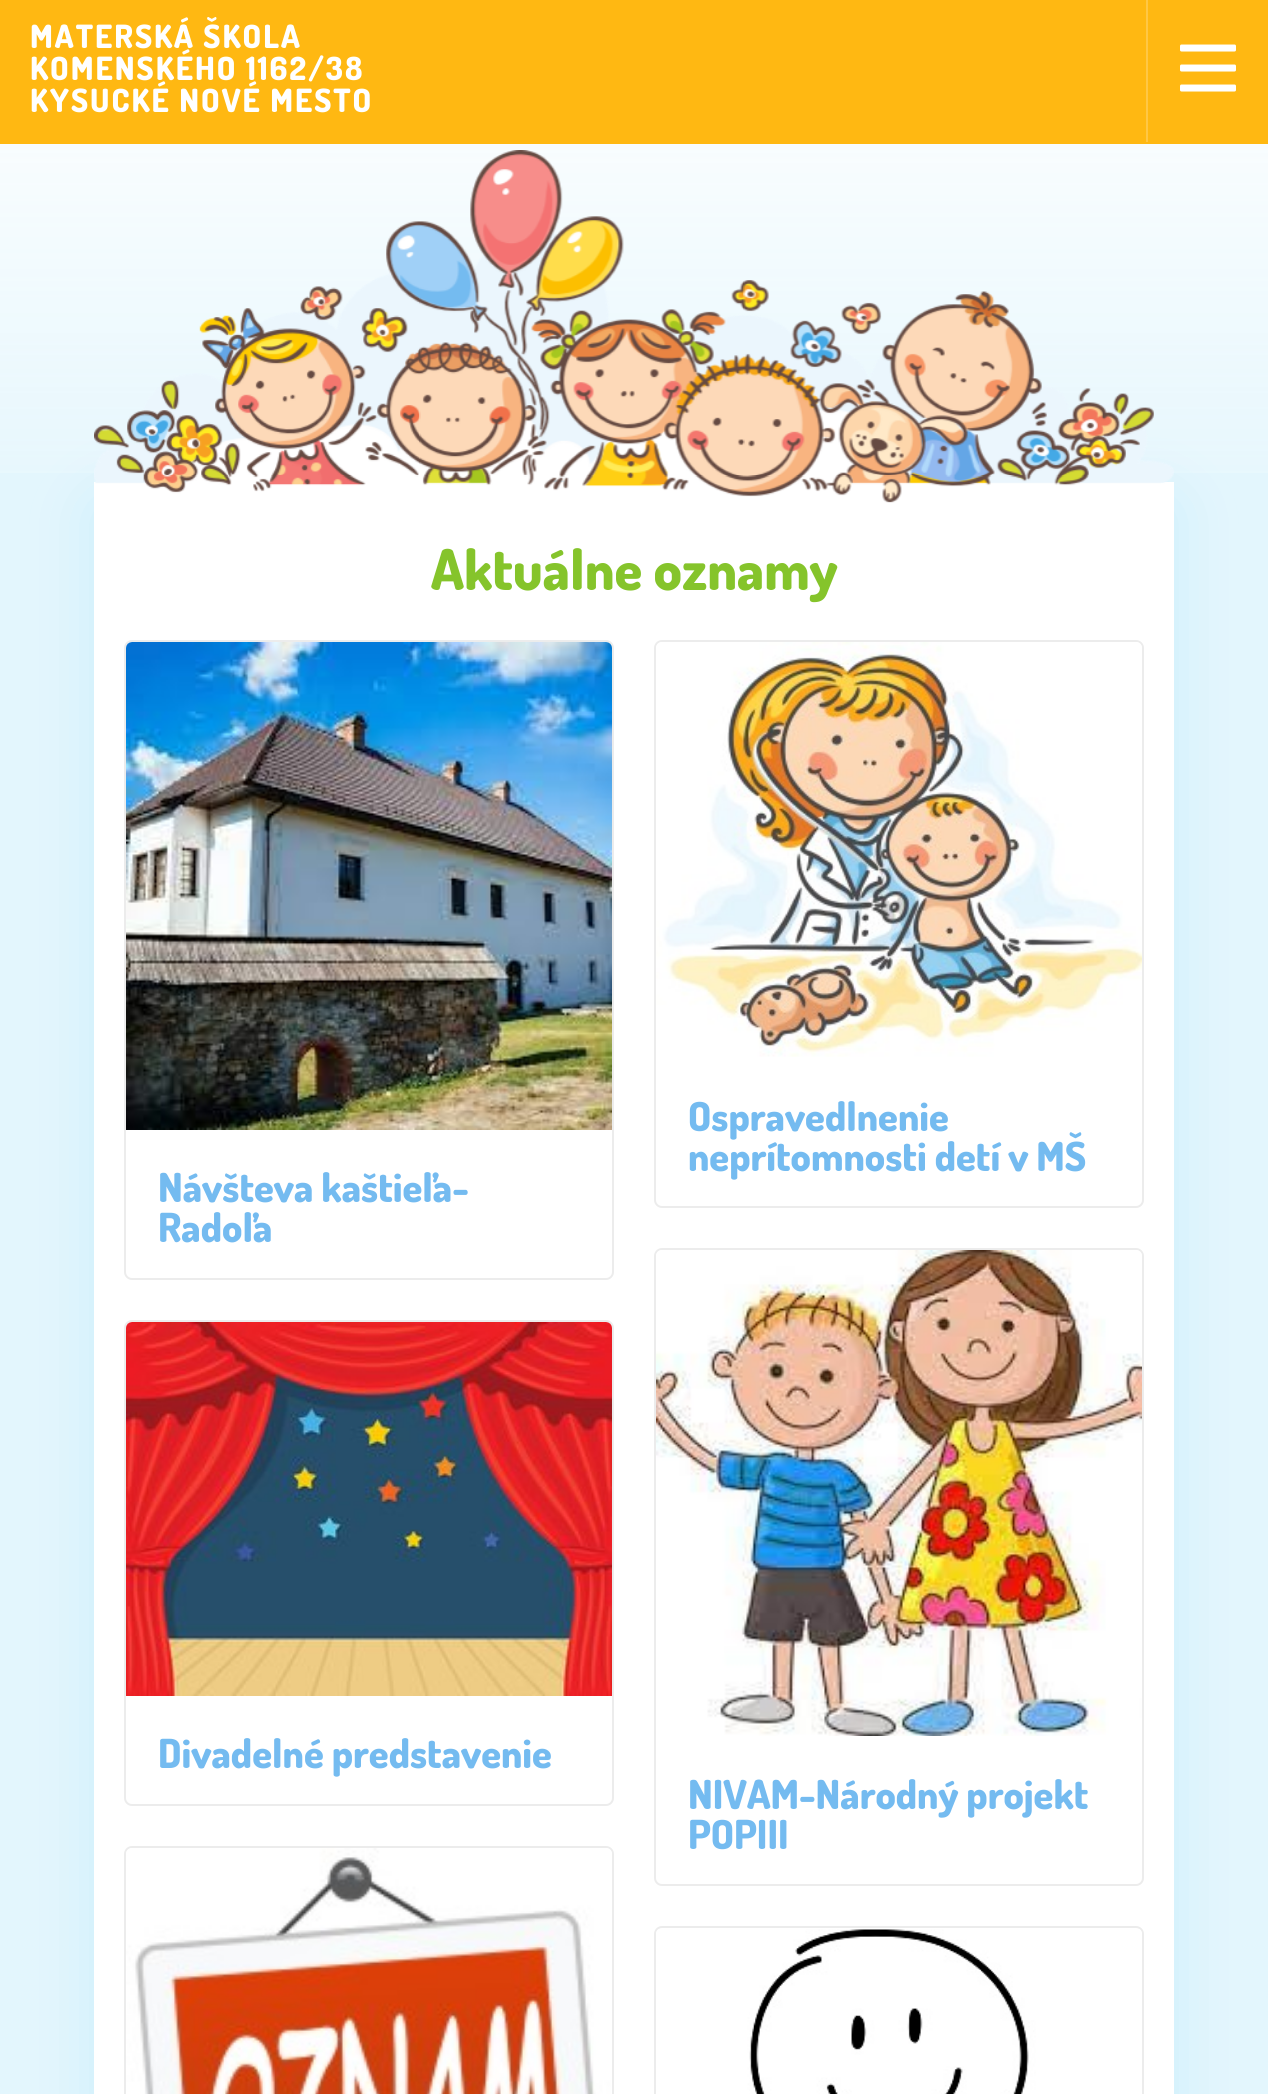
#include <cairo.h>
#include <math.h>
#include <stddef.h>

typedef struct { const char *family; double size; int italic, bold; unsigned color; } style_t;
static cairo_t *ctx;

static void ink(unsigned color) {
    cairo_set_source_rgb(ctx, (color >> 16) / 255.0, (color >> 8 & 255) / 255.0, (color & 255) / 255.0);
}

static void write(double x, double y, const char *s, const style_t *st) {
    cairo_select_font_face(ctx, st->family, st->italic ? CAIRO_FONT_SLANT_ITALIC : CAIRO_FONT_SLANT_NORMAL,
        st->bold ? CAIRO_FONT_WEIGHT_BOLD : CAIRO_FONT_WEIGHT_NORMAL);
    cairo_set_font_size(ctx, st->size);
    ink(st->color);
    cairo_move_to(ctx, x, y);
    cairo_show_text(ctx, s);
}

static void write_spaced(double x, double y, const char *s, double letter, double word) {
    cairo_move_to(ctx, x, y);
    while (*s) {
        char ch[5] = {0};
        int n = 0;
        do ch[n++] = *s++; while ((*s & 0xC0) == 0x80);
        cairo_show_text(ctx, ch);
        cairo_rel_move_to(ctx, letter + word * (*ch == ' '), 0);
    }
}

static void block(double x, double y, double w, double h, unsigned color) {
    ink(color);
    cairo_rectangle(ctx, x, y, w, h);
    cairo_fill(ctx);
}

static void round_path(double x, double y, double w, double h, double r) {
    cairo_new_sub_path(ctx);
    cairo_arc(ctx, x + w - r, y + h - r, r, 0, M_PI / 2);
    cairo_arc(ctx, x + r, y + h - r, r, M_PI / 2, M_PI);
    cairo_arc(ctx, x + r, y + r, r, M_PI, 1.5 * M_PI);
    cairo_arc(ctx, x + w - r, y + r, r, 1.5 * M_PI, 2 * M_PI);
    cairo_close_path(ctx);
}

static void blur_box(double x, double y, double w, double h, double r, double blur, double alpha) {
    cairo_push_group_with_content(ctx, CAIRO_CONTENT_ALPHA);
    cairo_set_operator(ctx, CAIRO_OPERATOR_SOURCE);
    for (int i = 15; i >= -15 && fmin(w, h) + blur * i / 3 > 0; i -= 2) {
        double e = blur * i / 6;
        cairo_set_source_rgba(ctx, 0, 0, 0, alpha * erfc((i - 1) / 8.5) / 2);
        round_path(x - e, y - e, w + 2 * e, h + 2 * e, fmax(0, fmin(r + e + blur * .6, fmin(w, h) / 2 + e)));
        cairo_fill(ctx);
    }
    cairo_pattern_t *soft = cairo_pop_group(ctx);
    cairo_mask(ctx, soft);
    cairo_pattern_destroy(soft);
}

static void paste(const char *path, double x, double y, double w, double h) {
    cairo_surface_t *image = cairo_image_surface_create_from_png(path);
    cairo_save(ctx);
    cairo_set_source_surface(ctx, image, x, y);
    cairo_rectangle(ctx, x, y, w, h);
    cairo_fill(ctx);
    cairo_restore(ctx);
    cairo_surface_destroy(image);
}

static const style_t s1 = {"Dosis ExtraBold", 56, 0, 0, 0x85c42b};
static const style_t s2 = {"Dosis ExtraBold", 40, 0, 0, 0x74bbf0};

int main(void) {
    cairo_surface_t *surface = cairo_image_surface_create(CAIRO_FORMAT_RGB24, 1268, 2094);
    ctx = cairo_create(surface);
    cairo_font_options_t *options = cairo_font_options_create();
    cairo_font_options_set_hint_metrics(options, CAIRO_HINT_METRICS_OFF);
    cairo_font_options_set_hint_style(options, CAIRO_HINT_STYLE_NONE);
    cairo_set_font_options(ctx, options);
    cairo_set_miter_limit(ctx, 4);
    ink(0xe3f6fd);
    cairo_paint(ctx);
    paste("pic1.png", 0, 144, 1268, 329);
    block(0, 0, 1268, 144, 0xffb812);
    cairo_select_font_face(ctx, "Dosis ExtraBold", CAIRO_FONT_SLANT_NORMAL, CAIRO_FONT_WEIGHT_NORMAL);
    cairo_set_font_size(ctx, 32);
    ink(0xffffff);
    write_spaced(30, 48, "MATERSKÁ ŠKOLA", 2, 0);
    write_spaced(30, 80, "KOMENSKÉHO 1162/38", 2, 0);
    write_spaced(30, 112, "KYSUCKÉ NOVÉ MESTO", 2, 0);
    block(1146, 0, 2, 142, 0xffc745);
    paste("pic2.png", 1180, 44, 56, 48);
    ink(0xcbeefb);
    blur_box(94, 502, 1080, 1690, 8, 30, 1);
    block(94, 482, 1080, 1612, 0xffffff);
    paste("pic3.png", 94, 150, 1080, 353);
    write(431, 590, "Aktuálne oznamy", &s1);
    round_path(655, 641, 488, 566, 7);
    ink(0xececec);
    cairo_stroke(ctx);
    paste("pic4.png", 656, 642, 486, 415);
    write(688, 1131, "Ospravedlnenie", &s2);
    write(688, 1171, "neprítomnosti detí v MŠ", &s2);
    round_path(125, 641, 488, 638, 7);
    ink(0xececec);
    cairo_stroke(ctx);
    paste("pic5.png", 126, 642, 486, 488);
    write(158, 1202, "Návšteva kaštieľa-", &s2);
    write(158, 1242, "Radoľa", &s2);
    round_path(125, 1321, 488, 484, 7);
    ink(0xececec);
    cairo_stroke(ctx);
    paste("pic6.png", 126, 1322, 486, 374);
    write(158, 1768, "Divadelné predstavenie", &s2);
    round_path(655, 1249, 488, 636, 7);
    ink(0xececec);
    cairo_stroke(ctx);
    paste("pic7.png", 656, 1250, 486, 486);
    write(688, 1809, "NIVAM-Národný projekt", &s2);
    write(688, 1849, "POPIII", &s2);
    round_path(125, 1847, 488, 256, 7);
    ink(0xececec);
    cairo_stroke(ctx);
    paste("pic8.png", 126, 1848, 486, 246);
    round_path(655, 1927, 488, 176, 7);
    cairo_stroke(ctx);
    paste("pic9.png", 656, 1929, 486, 165);
    cairo_surface_write_to_png(surface, "screenshot.png");
    cairo_font_options_destroy(options);
    cairo_destroy(ctx);
    cairo_surface_destroy(surface);
    return 0;
}
